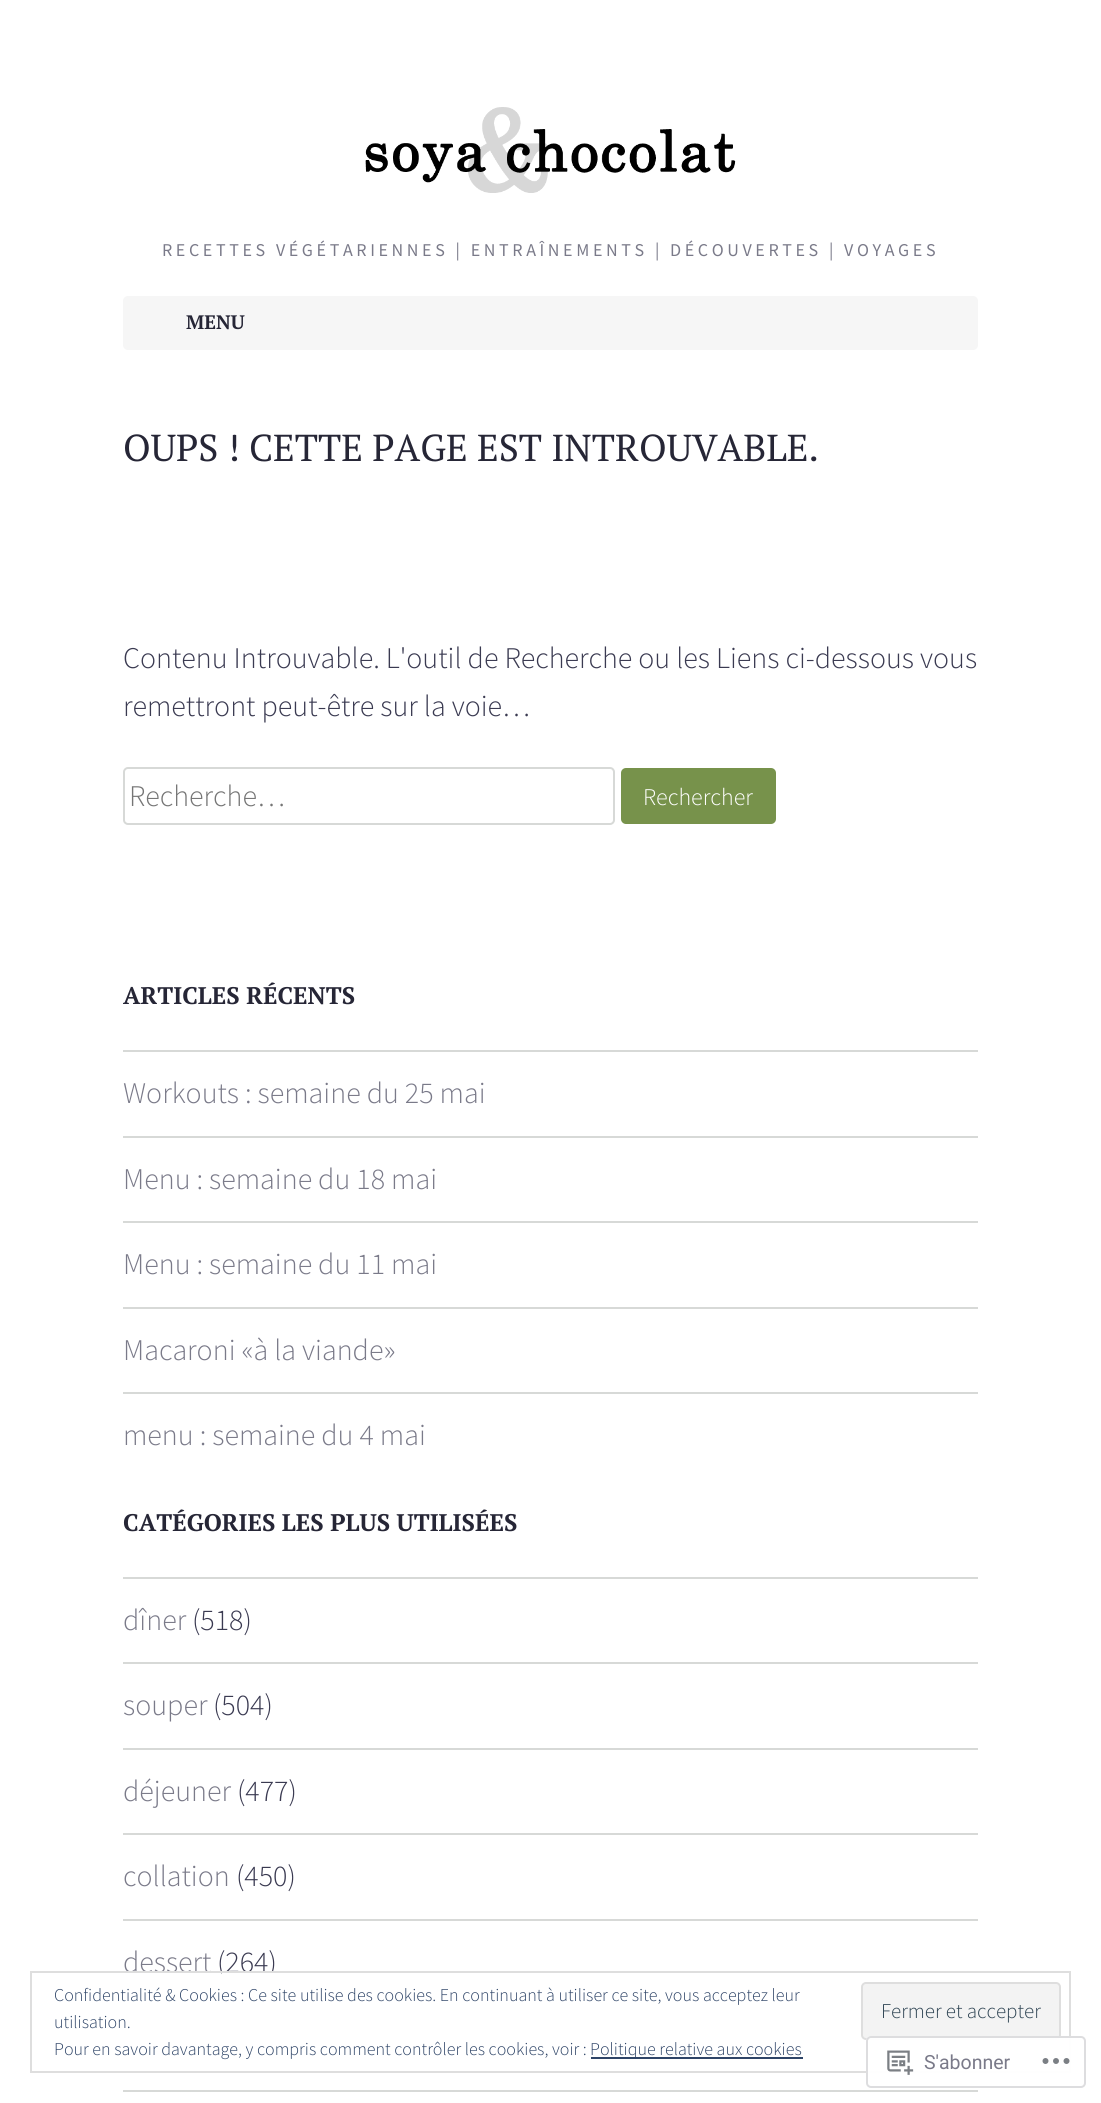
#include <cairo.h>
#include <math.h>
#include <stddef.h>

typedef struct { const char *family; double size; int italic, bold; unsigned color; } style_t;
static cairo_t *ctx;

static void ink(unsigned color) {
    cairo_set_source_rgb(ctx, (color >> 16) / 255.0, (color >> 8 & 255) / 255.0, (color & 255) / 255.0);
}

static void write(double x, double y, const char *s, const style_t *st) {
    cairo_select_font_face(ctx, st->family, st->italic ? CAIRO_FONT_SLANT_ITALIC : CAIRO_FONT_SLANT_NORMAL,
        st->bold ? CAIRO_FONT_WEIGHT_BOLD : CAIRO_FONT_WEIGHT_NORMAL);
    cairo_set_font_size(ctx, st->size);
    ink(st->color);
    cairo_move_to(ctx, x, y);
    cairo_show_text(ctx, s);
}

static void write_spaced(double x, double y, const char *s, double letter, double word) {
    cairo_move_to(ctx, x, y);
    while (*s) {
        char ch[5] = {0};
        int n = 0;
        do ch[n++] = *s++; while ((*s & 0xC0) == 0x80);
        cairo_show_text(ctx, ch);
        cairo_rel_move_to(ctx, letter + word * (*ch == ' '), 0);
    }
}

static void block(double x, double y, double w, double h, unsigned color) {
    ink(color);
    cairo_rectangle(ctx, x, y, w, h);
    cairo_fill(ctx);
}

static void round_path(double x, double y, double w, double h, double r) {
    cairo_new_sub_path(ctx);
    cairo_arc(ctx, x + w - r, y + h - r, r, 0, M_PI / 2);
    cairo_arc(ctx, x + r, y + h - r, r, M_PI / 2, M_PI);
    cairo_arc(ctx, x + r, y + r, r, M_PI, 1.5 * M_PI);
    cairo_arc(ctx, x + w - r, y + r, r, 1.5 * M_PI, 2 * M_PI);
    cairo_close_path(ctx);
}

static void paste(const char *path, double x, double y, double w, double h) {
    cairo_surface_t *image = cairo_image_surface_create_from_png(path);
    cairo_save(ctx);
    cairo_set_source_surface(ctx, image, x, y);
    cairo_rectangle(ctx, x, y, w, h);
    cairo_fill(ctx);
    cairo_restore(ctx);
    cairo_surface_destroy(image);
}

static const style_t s1 = {"PT Serif", 19.5, 0, 1, 0x262636};
static const style_t s2 = {"PT Serif", 37.5, 0, 0, 0x262636};
static const style_t s3 = {"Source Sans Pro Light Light", 30, 0, 0, 0x3a3a51};
static const style_t s4 = {"Source Sans Pro Light Light", 30, 0, 0, 0x757575};
static const style_t s5 = {"Source Sans Pro Light Light", 24, 0, 0, 0xffffff};
static const style_t s6 = {"PT Serif", 24, 0, 1, 0x262636};
static const style_t s7 = {"Source Sans Pro Light Light", 30, 0, 0, 0x7a7a89};
static const style_t s8 = {"Source Sans Pro Light Light", 18, 0, 0, 0x2e4467};
static const style_t s9 = {"Source Sans Pro Light Light", 21, 0, 0, 0x2e4453};
static const style_t s10 = {"Roboto", 19.5, 0, 0, 0x7a7a89};

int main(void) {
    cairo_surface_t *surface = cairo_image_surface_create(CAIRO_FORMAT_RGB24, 1101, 2103);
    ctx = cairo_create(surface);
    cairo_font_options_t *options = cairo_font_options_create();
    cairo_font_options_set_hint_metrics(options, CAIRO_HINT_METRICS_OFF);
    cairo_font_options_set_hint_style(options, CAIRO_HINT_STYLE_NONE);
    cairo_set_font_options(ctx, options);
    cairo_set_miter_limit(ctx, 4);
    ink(0xffffff);
    cairo_paint(ctx);
    paste("pic1.png", 365, 107, 371, 86);
    cairo_select_font_face(ctx, "Source Sans Pro", CAIRO_FONT_SLANT_NORMAL, CAIRO_FONT_WEIGHT_NORMAL);
    cairo_set_font_size(ctx, 18);
    ink(0x7a7a89);
    write_spaced(162, 256, "RECETTES VÉGÉTARIENNES | ENTRAÎNEMENTS | DÉCOUVERTES | VOYAGES", 3.6, 0);
    ink(0xf6f6f6);
    round_path(123, 296, 855, 54, 5);
    cairo_fill(ctx);
    write(186, 329, "MENU", &s1);
    write(123, 461, "OUPS ! CETTE PAGE EST INTROUVABLE.", &s2);
    write(123, 668, "Contenu Introuvable. L'outil de Recherche ou les Liens ci-dessous vous", &s3);
    write(123, 716, "remettront peut-être sur la voie…", &s3);
    round_path(124, 768, 490, 56, 4);
    ink(0xd7d9d7);
    cairo_stroke(ctx);
    write(129, 806, "Recherche…", &s4);
    ink(0x77924b);
    round_path(621, 768, 155, 56, 5);
    cairo_fill(ctx);
    write(643, 805, "Rechercher", &s5);
    write(123, 1004, "ARTICLES RÉCENTS", &s6);
    block(123, 1050, 855, 2, 0xd7d9d7);
    write(123, 1103, "Workouts : semaine du 25 mai", &s7);
    block(123, 1136, 855, 2, 0xd7d9d7);
    write(123, 1189, "Menu : semaine du 18 mai", &s7);
    block(123, 1221, 855, 2, 0xd7d9d7);
    write(123, 1274, "Menu : semaine du 11 mai", &s7);
    block(123, 1307, 855, 2, 0xd7d9d7);
    write(123, 1360, "Macaroni «à la viande»", &s7);
    block(123, 1392, 855, 2, 0xd7d9d7);
    write(123, 1445, "menu : semaine du 4 mai", &s7);
    write(123, 1531, "CATÉGORIES LES PLUS UTILISÉES", &s6);
    block(123, 1577, 855, 2, 0xd7d9d7);
    write(123, 1630, "dîner", &s7);
    write(192, 1630, "(518)", &s3);
    block(123, 1662, 855, 2, 0xd7d9d7);
    write(123, 1715, "souper", &s7);
    write(213, 1715, "(504)", &s3);
    block(123, 1748, 855, 2, 0xd7d9d7);
    write(123, 1801, "déjeuner", &s7);
    write(237, 1801, "(477)", &s3);
    block(123, 1833, 855, 2, 0xd7d9d7);
    write(123, 1886, "collation", &s7);
    write(236, 1886, "(450)", &s3);
    block(123, 1919, 855, 2, 0xd7d9d7);
    write(123, 1972, "dessert", &s7);
    write(217, 1972, "(264)", &s3);
    block(123, 2090, 855, 2, 0xd7d9d7);
    block(222, 1973, 51, 5, 0xffffff);
    cairo_rectangle(ctx, 31, 1972, 1039, 100);
    ink(0xdedede);
    cairo_stroke(ctx);
    write(54, 2001, "Confidentialité & Cookies : Ce site utilise des cookies. En continuant à utiliser ce site, vous acceptez leur", &s8);
    write(54, 2028, "utilisation.", &s8);
    ink(0xf3f3f3);
    round_path(862, 1983, 198, 56, 4);
    cairo_fill_preserve(ctx);
    ink(0xdedede);
    cairo_stroke(ctx);
    write(881, 2018, "Fermer et accepter", &s9);
    write(54, 2055, "Pour en savoir davantage, y compris comment contrôler les cookies, voir :", &s8);
    block(591, 2057, 212, 2, 0x2e4467);
    write(590, 2055, "Politique relative aux cookies", &s8);
    cairo_set_source_rgba(ctx, 1, 1, 1, 0.98);
    round_path(866, 2036, 220, 52, 5);
    cairo_fill(ctx);
    round_path(867, 2037, 218, 50, 4);
    cairo_set_source_rgba(ctx, 0.863, 0.863, 0.871, 0.98);
    cairo_stroke(ctx);
    paste("pic2.png", 887, 2050, 27, 25);
    write(924, 2069, "S'abonner", &s10);
    paste("pic3.png", 1042, 2058, 28, 6);
    cairo_surface_write_to_png(surface, "screenshot.png");
    cairo_font_options_destroy(options);
    cairo_destroy(ctx);
    cairo_surface_destroy(surface);
    return 0;
}
